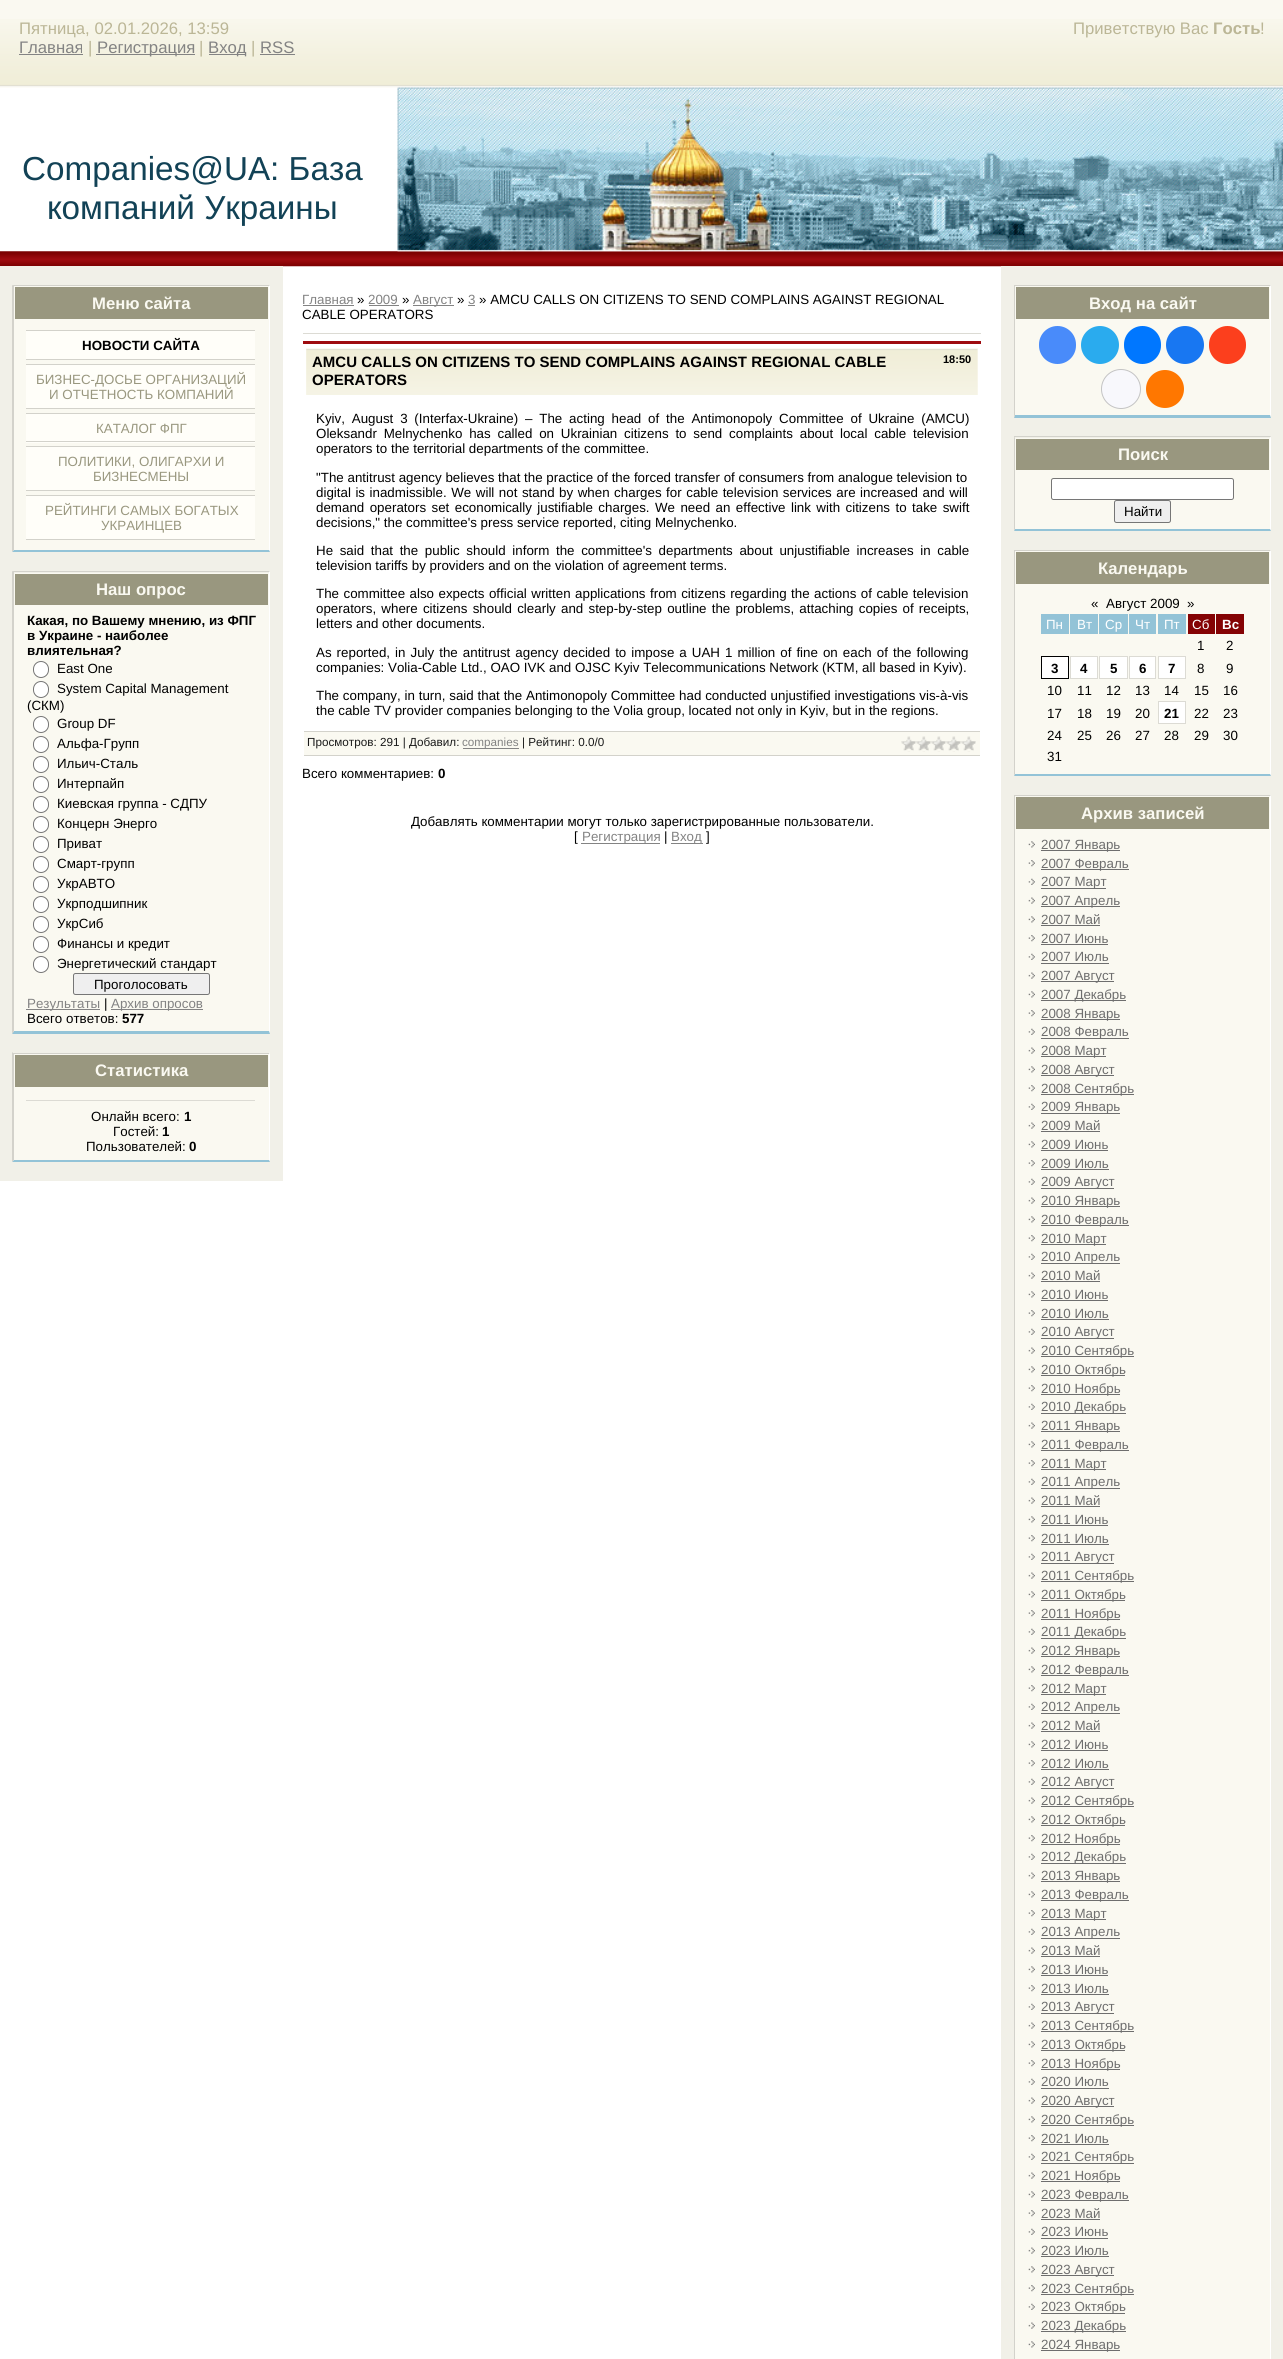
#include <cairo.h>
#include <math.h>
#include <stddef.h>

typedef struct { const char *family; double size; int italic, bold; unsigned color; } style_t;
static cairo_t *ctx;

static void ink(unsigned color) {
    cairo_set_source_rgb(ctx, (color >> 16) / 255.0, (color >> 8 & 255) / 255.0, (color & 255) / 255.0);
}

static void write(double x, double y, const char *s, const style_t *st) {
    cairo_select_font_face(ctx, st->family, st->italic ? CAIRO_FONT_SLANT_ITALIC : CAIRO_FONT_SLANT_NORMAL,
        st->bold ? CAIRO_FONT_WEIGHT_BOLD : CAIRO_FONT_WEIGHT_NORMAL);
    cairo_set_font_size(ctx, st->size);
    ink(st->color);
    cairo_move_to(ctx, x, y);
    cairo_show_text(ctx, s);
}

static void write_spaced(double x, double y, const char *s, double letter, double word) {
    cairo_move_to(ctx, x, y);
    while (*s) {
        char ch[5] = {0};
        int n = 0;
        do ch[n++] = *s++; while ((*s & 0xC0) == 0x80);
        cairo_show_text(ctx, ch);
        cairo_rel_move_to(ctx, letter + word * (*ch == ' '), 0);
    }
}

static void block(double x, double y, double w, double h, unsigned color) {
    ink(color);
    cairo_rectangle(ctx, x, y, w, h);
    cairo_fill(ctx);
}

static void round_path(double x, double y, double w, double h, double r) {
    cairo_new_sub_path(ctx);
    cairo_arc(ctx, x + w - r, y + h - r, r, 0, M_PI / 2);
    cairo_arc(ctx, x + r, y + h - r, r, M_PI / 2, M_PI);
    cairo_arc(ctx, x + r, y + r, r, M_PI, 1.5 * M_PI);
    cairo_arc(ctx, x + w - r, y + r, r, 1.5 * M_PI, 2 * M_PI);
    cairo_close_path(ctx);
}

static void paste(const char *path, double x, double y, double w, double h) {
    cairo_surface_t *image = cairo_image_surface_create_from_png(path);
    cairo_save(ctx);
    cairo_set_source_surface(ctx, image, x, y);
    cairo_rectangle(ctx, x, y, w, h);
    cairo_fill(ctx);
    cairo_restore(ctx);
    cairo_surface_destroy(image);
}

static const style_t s1 = {"Liberation Sans", 16.7, 0, 0, 0xbbb696};
static const style_t s2 = {"Liberation Sans", 16.7, 0, 0, 0x838383};
static const style_t s3 = {"Liberation Sans", 16.7, 0, 1, 0xbbb696};
static const style_t s4 = {"Liberation Sans", 33.25, 0, 0, 0x124256};
static const style_t s5 = {"Liberation Sans", 16.7, 0, 1, 0xfaf9f1};
static const style_t s6 = {"Liberation Sans", 13.35, 0, 1, 0x000000};
static const style_t s7 = {"Liberation Sans", 13.35, 0, 0, 0x99977f};
static const style_t s8 = {"Liberation Sans", 13.35, 0, 0, 0x000000};
static const style_t s9 = {"Liberation Sans", 13.35, 0, 0, 0x838383};
static const style_t s10 = {"Liberation Sans", 15, 0, 1, 0x000000};
static const style_t s11 = {"Liberation Sans", 11, 0, 1, 0x000000};
static const style_t s12 = {"Liberation Sans", 11.7, 0, 0, 0x1a1a1a};
static const style_t s13 = {"Liberation Sans", 11.7, 0, 0, 0x838383};
static const style_t s14 = {"Liberation Sans", 13.35, 0, 0, 0xffffff};
static const style_t s15 = {"Liberation Sans", 13.35, 0, 1, 0xffffff};
static const style_t s16 = {"Liberation Sans", 13.35, 0, 0, 0x6e6e6e};

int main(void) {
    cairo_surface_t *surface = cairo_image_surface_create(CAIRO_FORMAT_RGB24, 1283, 2359);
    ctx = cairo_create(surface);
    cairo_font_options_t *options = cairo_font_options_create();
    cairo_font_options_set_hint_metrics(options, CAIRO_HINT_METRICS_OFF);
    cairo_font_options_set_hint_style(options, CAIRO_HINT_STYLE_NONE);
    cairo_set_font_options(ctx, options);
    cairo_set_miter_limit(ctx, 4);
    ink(0xffffff);
    cairo_paint(ctx);
    block(0, 0, 1283, 88, 0xfaf9f1);
    paste("pic1.png", 0, 19, 1283, 69);
    write(19, 34, "Пятница, 02.01.2026, 13:59", &s1);
    write(19, 53, "Главная", &s2);
    block(19, 54, 64, 1, 0x838383);
    write(88, 53, "|", &s1);
    block(96, 54, 99, 1, 0x838383);
    write(97, 53, "Регистрация", &s2);
    write(199, 53, "|", &s1);
    block(209, 54, 37, 1, 0x838383);
    write(208, 53, "Вход", &s2);
    write(251, 53, "|", &s1);
    write(260, 53, "RSS", &s2);
    block(260, 54, 35, 1, 0x838383);
    write(1073, 34, "Приветствую Вас", &s1);
    write(1213, 34, "Гость", &s3);
    write(1260, 34, "!", &s1);
    write(22, 180, "Companies@UA: База", &s4);
    write(47, 219, "компаний Украины", &s4);
    paste("pic3.png", 0, 251, 1283, 16);
    paste("pic2.png", 397, 87, 886, 165);
    block(0, 266, 283, 915, 0xf1f0e8);
    block(14, 320, 255, 230, 0xfaf9f1);
    block(13, 285, 257, 1, 0xd3d2cb);
    ink(0xffffff);
    cairo_new_path(ctx);
    cairo_move_to(ctx, 270, 285);
    cairo_line_to(ctx, 270, 552);
    cairo_line_to(ctx, 269, 550);
    cairo_line_to(ctx, 269, 286);
    cairo_close_path(ctx);
    cairo_fill(ctx);
    ink(0x93c3d7);
    cairo_new_path(ctx);
    cairo_move_to(ctx, 270, 552);
    cairo_line_to(ctx, 12, 552);
    cairo_line_to(ctx, 14, 550);
    cairo_line_to(ctx, 269, 550);
    cairo_close_path(ctx);
    cairo_fill(ctx);
    ink(0xd3d2cb);
    cairo_new_path(ctx);
    cairo_move_to(ctx, 12, 552);
    cairo_line_to(ctx, 12, 285);
    cairo_line_to(ctx, 14, 286);
    cairo_line_to(ctx, 14, 550);
    cairo_close_path(ctx);
    cairo_fill(ctx);
    ink(0x99977f);
    cairo_rectangle(ctx, 14.5, 286.5, 254, 33);
    cairo_fill_preserve(ctx);
    ink(0xfaf9f1);
    cairo_set_line_width(ctx, 1);
    cairo_stroke(ctx);
    write(92, 309, "Меню сайта", &s5);
    block(26, 331, 229, 28, 0xfffef9);
    block(26, 330, 229, 1, 0xd3d2cb);
    block(26, 359, 229, 1, 0xd3d2cb);
    write(82, 350, "НОВОСТИ САЙТА", &s6);
    block(26, 365, 229, 43, 0xfffef9);
    block(26, 364, 229, 1, 0xd3d2cb);
    block(26, 408, 229, 1, 0xd3d2cb);
    write(36, 384, "БИЗНЕС-ДОСЬЕ ОРГАНИЗАЦИЙ", &s7);
    write(49, 399, "И ОТЧЕТНОСТЬ КОМПАНИЙ", &s7);
    block(26, 414, 229, 29, 0xfffef9);
    block(26, 413, 229, 1, 0xd3d2cb);
    block(26, 441, 229, 1, 0xd3d2cb);
    write(96, 433, "КАТАЛОГ ФПГ", &s7);
    block(26, 447, 229, 43, 0xfffef9);
    block(26, 446, 229, 1, 0xd3d2cb);
    block(26, 490, 229, 1, 0xd3d2cb);
    write(58, 466, "ПОЛИТИКИ, ОЛИГАРХИ И", &s7);
    write(93, 481, "БИЗНЕСМЕНЫ", &s7);
    block(26, 496, 229, 43, 0xfffef9);
    block(26, 495, 229, 1, 0xd3d2cb);
    block(26, 539, 229, 1, 0xd3d2cb);
    write(45, 515, "РЕЙТИНГИ САМЫХ БОГАТЫХ", &s7);
    write(101, 530, "УКРАИНЦЕВ", &s7);
    block(14, 606, 255, 425, 0xfaf9f1);
    block(13, 571, 257, 1, 0xd3d2cb);
    ink(0xffffff);
    cairo_new_path(ctx);
    cairo_move_to(ctx, 270, 571);
    cairo_line_to(ctx, 270, 1034);
    cairo_line_to(ctx, 269, 1031);
    cairo_line_to(ctx, 269, 572);
    cairo_close_path(ctx);
    cairo_fill(ctx);
    ink(0x93c3d7);
    cairo_new_path(ctx);
    cairo_move_to(ctx, 270, 1034);
    cairo_line_to(ctx, 12, 1034);
    cairo_line_to(ctx, 14, 1031);
    cairo_line_to(ctx, 269, 1031);
    cairo_close_path(ctx);
    cairo_fill(ctx);
    ink(0xd3d2cb);
    cairo_new_path(ctx);
    cairo_move_to(ctx, 12, 1034);
    cairo_line_to(ctx, 12, 571);
    cairo_line_to(ctx, 14, 572);
    cairo_line_to(ctx, 14, 1031);
    cairo_close_path(ctx);
    cairo_fill(ctx);
    ink(0x99977f);
    cairo_rectangle(ctx, 14.5, 573.5, 254, 32);
    cairo_fill_preserve(ctx);
    ink(0xfaf9f1);
    cairo_stroke(ctx);
    write(96, 595, "Наш опрос", &s5);
    write(27, 625, "Какая, по Вашему мнению, из ФПГ", &s6);
    write(27, 640, "в Украине - наиболее", &s6);
    write(27, 655, "влиятельная?", &s6);
    ink(0xffffff);
    round_path(33.5, 661.5, 15, 16, 7.5);
    cairo_fill_preserve(ctx);
    ink(0x767676);
    cairo_stroke(ctx);
    write(57, 673, "East One", &s8);
    ink(0xffffff);
    round_path(33.5, 681.5, 15, 16, 7.5);
    cairo_fill_preserve(ctx);
    ink(0x767676);
    cairo_stroke(ctx);
    write(57, 693, "System Capital Management", &s8);
    write(27, 710, "(СКМ)", &s8);
    ink(0xffffff);
    round_path(33.5, 716.5, 15, 16, 7.5);
    cairo_fill_preserve(ctx);
    ink(0x767676);
    cairo_stroke(ctx);
    write(57, 728, "Group DF", &s8);
    ink(0xffffff);
    round_path(33.5, 736.5, 15, 16, 7.5);
    cairo_fill_preserve(ctx);
    ink(0x767676);
    cairo_stroke(ctx);
    write(57, 748, "Альфа-Групп", &s8);
    ink(0xffffff);
    round_path(33.5, 756.5, 15, 16, 7.5);
    cairo_fill_preserve(ctx);
    ink(0x767676);
    cairo_stroke(ctx);
    write(57, 768, "Ильич-Сталь", &s8);
    ink(0xffffff);
    round_path(33.5, 776.5, 15, 16, 7.5);
    cairo_fill_preserve(ctx);
    ink(0x767676);
    cairo_stroke(ctx);
    write(57, 788, "Интерпайп", &s8);
    ink(0xffffff);
    round_path(33.5, 796.5, 15, 16, 7.5);
    cairo_fill_preserve(ctx);
    ink(0x767676);
    cairo_stroke(ctx);
    write(57, 808, "Киевская группа - СДПУ", &s8);
    ink(0xffffff);
    round_path(33.5, 816.5, 15, 16, 7.5);
    cairo_fill_preserve(ctx);
    ink(0x767676);
    cairo_stroke(ctx);
    write(57, 828, "Концерн Энерго", &s8);
    ink(0xffffff);
    round_path(33.5, 836.5, 15, 16, 7.5);
    cairo_fill_preserve(ctx);
    ink(0x767676);
    cairo_stroke(ctx);
    write(57, 848, "Приват", &s8);
    ink(0xffffff);
    round_path(33.5, 856.5, 15, 16, 7.5);
    cairo_fill_preserve(ctx);
    ink(0x767676);
    cairo_stroke(ctx);
    write(57, 868, "Смарт-групп", &s8);
    ink(0xffffff);
    round_path(33.5, 876.5, 15, 16, 7.5);
    cairo_fill_preserve(ctx);
    ink(0x767676);
    cairo_stroke(ctx);
    write(57, 888, "УкрАВТО", &s8);
    ink(0xffffff);
    round_path(33.5, 896.5, 15, 16, 7.5);
    cairo_fill_preserve(ctx);
    ink(0x767676);
    cairo_stroke(ctx);
    write(57, 908, "Укрподшипник", &s8);
    ink(0xffffff);
    round_path(33.5, 916.5, 15, 16, 7.5);
    cairo_fill_preserve(ctx);
    ink(0x767676);
    cairo_stroke(ctx);
    write(57, 928, "УкрСиб", &s8);
    ink(0xffffff);
    round_path(33.5, 936.5, 15, 16, 7.5);
    cairo_fill_preserve(ctx);
    ink(0x767676);
    cairo_stroke(ctx);
    write(57, 948, "Финансы и кредит", &s8);
    ink(0xffffff);
    round_path(33.5, 956.5, 15, 16, 7.5);
    cairo_fill_preserve(ctx);
    ink(0x767676);
    cairo_stroke(ctx);
    write(57, 968, "Энергетический стандарт", &s8);
    ink(0xefefef);
    round_path(73.5, 973.5, 136, 21, 2);
    cairo_fill_preserve(ctx);
    ink(0x767676);
    cairo_stroke(ctx);
    write(94, 989, "Проголосовать", &s8);
    block(26, 1009, 74, 1, 0x838383);
    write(27, 1008, "Результаты", &s9);
    write(104, 1008, "|", &s8);
    block(111, 1009, 92, 1, 0x838383);
    write(111, 1008, "Архив опросов", &s9);
    write(27, 1023, "Всего ответов:", &s8);
    write(122, 1023, "577", &s6);
    block(14, 1088, 255, 72, 0xfaf9f1);
    block(13, 1053, 257, 1, 0xd3d2cb);
    ink(0xffffff);
    cairo_new_path(ctx);
    cairo_move_to(ctx, 270, 1052);
    cairo_line_to(ctx, 270, 1162);
    cairo_line_to(ctx, 269, 1160);
    cairo_line_to(ctx, 269, 1054);
    cairo_close_path(ctx);
    cairo_fill(ctx);
    ink(0x93c3d7);
    cairo_new_path(ctx);
    cairo_move_to(ctx, 270, 1162);
    cairo_line_to(ctx, 12, 1162);
    cairo_line_to(ctx, 14, 1160);
    cairo_line_to(ctx, 269, 1160);
    cairo_close_path(ctx);
    cairo_fill(ctx);
    ink(0xd3d2cb);
    cairo_new_path(ctx);
    cairo_move_to(ctx, 12, 1162);
    cairo_line_to(ctx, 12, 1052);
    cairo_line_to(ctx, 14, 1054);
    cairo_line_to(ctx, 14, 1160);
    cairo_close_path(ctx);
    cairo_fill(ctx);
    ink(0x99977f);
    cairo_rectangle(ctx, 14.5, 1054.5, 254, 33);
    cairo_fill_preserve(ctx);
    ink(0xfaf9f1);
    cairo_stroke(ctx);
    write(95, 1076, "Статистика", &s5);
    block(26, 1100, 229, 1, 0xdcdbd4);
    write(91, 1121, "Онлайн всего:", &s8);
    write(184, 1121, "1", &s6);
    write(113, 1136, "Гостей:", &s8);
    write(162, 1136, "1", &s6);
    write(86, 1151, "Пользователей:", &s8);
    write(189, 1151, "0", &s6);
    write(302, 304, "Главная", &s9);
    block(303, 305, 51, 1, 0x838383);
    write(357, 304, "»", &s8);
    write(368, 304, "2009", &s9);
    block(369, 305, 30, 1, 0x838383);
    write(402, 304, "»", &s8);
    block(413, 305, 41, 1, 0x838383);
    write(413, 304, "Август", &s9);
    write(457, 304, "»", &s8);
    write(468, 304, "3", &s9);
    block(468, 305, 7, 1, 0x838383);
    write(479, 304, "» AMCU CALLS ON CITIZENS TO SEND COMPLAINS AGAINST REGIONAL", &s8);
    write(302, 319, "CABLE OPERATORS", &s8);
    block(303, 333, 678, 1, 0xdcdbd4);
    block(303, 341, 678, 3, 0x9e0b0f);
    block(306, 348, 672, 47, 0xfaf9f1);
    paste("pic4.png", 306, 349, 672, 46);
    write(312, 367, "AMCU CALLS ON CITIZENS TO SEND COMPLAINS AGAINST REGIONAL CABLE", &s10);
    write(943, 363, "18:50", &s11);
    write(312, 385, "OPERATORS", &s10);
    cairo_select_font_face(ctx, "Liberation Sans", CAIRO_FONT_SLANT_NORMAL, CAIRO_FONT_WEIGHT_NORMAL);
    cairo_set_font_size(ctx, 13.35);
    write_spaced(316, 423, "Kyiv, August 3 (Interfax-Ukraine) – The acting head of the Antimonopoly Committee of Ukraine (AMCU)", 0, 3.1);
    write_spaced(316, 438, "Oleksandr Melnychenko has called on Ukrainian citizens to send complaints about local cable television", 0, 3.1);
    write(316, 453, "operators to the territorial departments of the committee.", &s8);
    write(316, 482, "\"The antitrust agency believes that the practice of the forced transfer of consumers from analogue television to", &s8);
    write_spaced(316, 497, "digital is inadmissible. We will not stand by when charges for cable television services are increased and will", 0, 0.8);
    write_spaced(316, 512, "demand operators set economically justifiable charges. We need an effective link with citizens to take swift", 0, 1.7);
    write(316, 527, "decisions,\" the committee's press service reported, citing Melnychenko.", &s8);
    write_spaced(316, 555, "He said that the public should inform the committee's departments about unjustifiable increases in cable", 0, 2.9);
    write(316, 570, "television tariffs by providers and on the violation of agreement terms.", &s8);
    write_spaced(316, 598, "The committee also expects official written applications from citizens regarding the actions of cable television", 0, 0.75);
    write_spaced(316, 613, "operators, where citizens should clearly and step-by-step outline the problems, attaching copies of receipts,", 0, 1.5);
    write(316, 628, "letters and other documents.", &s8);
    write_spaced(316, 657, "As reported, in July the antitrust agency decided to impose a UAH 1 million of fine on each of the following", 0, 1.3);
    write(316, 672, "companies: Volia-Cable Ltd., OAO IVK and OJSC Kyiv Telecommunications Network (KTM, all based in Kyiv).", &s8);
    write_spaced(316, 700, "The company, in turn, said that the Antimonopoly Committee had conducted unjustified investigations vis-à-vis", 0, 0.1);
    write(316, 715, "the cable TV provider companies belonging to the Volia group, located not only in Kyiv, but in the regions.", &s8);
    block(304, 732, 676, 23, 0xfaf9f1);
    block(304, 731, 676, 1, 0xd3d2cb);
    block(304, 755, 676, 1, 0xd3d2cb);
    write(307, 746, "Просмотров: 291 | Добавил:", &s12);
    block(463, 748, 56, 1, 0x838383);
    write(462, 746, "companies", &s13);
    write(522, 746, "| Рейтинг: 0.0/0", &s12);
    paste("pic5.png", 901, 736, 75, 16);
    write(302, 778, "Всего комментариев:", &s8);
    write(438, 778, "0", &s6);
    write(411, 826, "Добавлять комментарии могут только зарегистрированные пользователи.", &s8);
    write(574, 841, "[", &s8);
    block(581, 843, 79, 1, 0x838383);
    write(582, 841, "Регистрация", &s9);
    write(664, 841, "|", &s8);
    block(671, 843, 32, 1, 0x838383);
    write(671, 841, "Вход", &s9);
    write(706, 841, "]", &s8);
    block(1001, 266, 282, 2093, 0xf1f0e8);
    block(1015, 320, 255, 95, 0xfaf9f1);
    block(1014, 285, 257, 1, 0xd3d2cb);
    ink(0xffffff);
    cairo_new_path(ctx);
    cairo_move_to(ctx, 1271, 285);
    cairo_line_to(ctx, 1271, 418);
    cairo_line_to(ctx, 1270, 415);
    cairo_line_to(ctx, 1270, 286);
    cairo_close_path(ctx);
    cairo_fill(ctx);
    ink(0x93c3d7);
    cairo_new_path(ctx);
    cairo_move_to(ctx, 1271, 418);
    cairo_line_to(ctx, 1014, 418);
    cairo_line_to(ctx, 1015, 415);
    cairo_line_to(ctx, 1270, 415);
    cairo_close_path(ctx);
    cairo_fill(ctx);
    ink(0xd3d2cb);
    cairo_new_path(ctx);
    cairo_move_to(ctx, 1014, 418);
    cairo_line_to(ctx, 1014, 285);
    cairo_line_to(ctx, 1015, 286);
    cairo_line_to(ctx, 1015, 415);
    cairo_close_path(ctx);
    cairo_fill(ctx);
    ink(0x99977f);
    cairo_rectangle(ctx, 1015.5, 286.5, 254, 33);
    cairo_fill_preserve(ctx);
    ink(0xfaf9f1);
    cairo_stroke(ctx);
    write(1089, 309, "Вход на сайт", &s5);
    ink(0x498bfa);
    round_path(1039, 326, 37, 38, 18.5);
    cairo_fill(ctx);
    ink(0x2aabee);
    cairo_arc(ctx, 1100, 345, 19, 0, 2 * M_PI);
    cairo_fill(ctx);
    ink(0x0077ff);
    round_path(1124, 326, 37, 38, 18.5);
    cairo_fill(ctx);
    ink(0x1877f2);
    cairo_arc(ctx, 1185, 345, 19, 0, 2 * M_PI);
    cairo_fill(ctx);
    ink(0xfc3f1d);
    round_path(1209, 326, 37, 38, 18.5);
    cairo_fill(ctx);
    ink(0xf8f8fc);
    cairo_arc(ctx, 1121, 389, 19.5, 0, 2 * M_PI);
    cairo_fill_preserve(ctx);
    ink(0xc4c4c4);
    cairo_stroke(ctx);
    ink(0xff7700);
    cairo_arc(ctx, 1165, 389, 19, 0, 2 * M_PI);
    cairo_fill(ctx);
    block(1015, 471, 255, 58, 0xfaf9f1);
    block(1014, 436, 257, 1, 0xd3d2cb);
    ink(0xffffff);
    cairo_new_path(ctx);
    cairo_move_to(ctx, 1271, 436);
    cairo_line_to(ctx, 1271, 531);
    cairo_line_to(ctx, 1270, 529);
    cairo_line_to(ctx, 1270, 438);
    cairo_close_path(ctx);
    cairo_fill(ctx);
    ink(0x93c3d7);
    cairo_new_path(ctx);
    cairo_move_to(ctx, 1271, 531);
    cairo_line_to(ctx, 1014, 531);
    cairo_line_to(ctx, 1015, 529);
    cairo_line_to(ctx, 1270, 529);
    cairo_close_path(ctx);
    cairo_fill(ctx);
    ink(0xd3d2cb);
    cairo_new_path(ctx);
    cairo_move_to(ctx, 1014, 531);
    cairo_line_to(ctx, 1014, 436);
    cairo_line_to(ctx, 1015, 438);
    cairo_line_to(ctx, 1015, 529);
    cairo_close_path(ctx);
    cairo_fill(ctx);
    ink(0x99977f);
    cairo_rectangle(ctx, 1015.5, 438.5, 254, 32);
    cairo_fill_preserve(ctx);
    ink(0xfaf9f1);
    cairo_stroke(ctx);
    write(1118, 460, "Поиск", &s5);
    ink(0xffffff);
    round_path(1051.5, 478.5, 182, 21, 2);
    cairo_fill_preserve(ctx);
    ink(0x767676);
    cairo_stroke(ctx);
    ink(0xefefef);
    round_path(1114.5, 500.5, 56, 22, 2);
    cairo_fill_preserve(ctx);
    ink(0x767676);
    cairo_stroke(ctx);
    write(1124, 516, "Найти", &s8);
    block(1015, 585, 255, 189, 0xfaf9f1);
    block(1014, 550, 257, 1, 0xd3d2cb);
    ink(0xffffff);
    cairo_new_path(ctx);
    cairo_move_to(ctx, 1271, 550);
    cairo_line_to(ctx, 1271, 776);
    cairo_line_to(ctx, 1270, 774);
    cairo_line_to(ctx, 1270, 551);
    cairo_close_path(ctx);
    cairo_fill(ctx);
    ink(0x93c3d7);
    cairo_new_path(ctx);
    cairo_move_to(ctx, 1271, 776);
    cairo_line_to(ctx, 1014, 776);
    cairo_line_to(ctx, 1015, 774);
    cairo_line_to(ctx, 1270, 774);
    cairo_close_path(ctx);
    cairo_fill(ctx);
    ink(0xd3d2cb);
    cairo_new_path(ctx);
    cairo_move_to(ctx, 1014, 776);
    cairo_line_to(ctx, 1014, 550);
    cairo_line_to(ctx, 1015, 551);
    cairo_line_to(ctx, 1015, 774);
    cairo_close_path(ctx);
    cairo_fill(ctx);
    ink(0x99977f);
    cairo_rectangle(ctx, 1015.5, 551.5, 254, 33);
    cairo_fill_preserve(ctx);
    ink(0xfaf9f1);
    cairo_stroke(ctx);
    write(1098, 574, "Календарь", &s5);
    write(1091, 608, "«", &s8);
    write(1106, 608, "Август 2009", &s8);
    write(1187, 608, "»", &s8);
    block(1041, 614, 28, 20, 0x93c3d7);
    write(1046, 629, "Пн", &s14);
    block(1070, 614, 28, 20, 0x93c3d7);
    write(1077, 629, "Вт", &s14);
    block(1099, 614, 29, 20, 0x93c3d7);
    write(1105, 629, "Ср", &s14);
    block(1129, 614, 27, 20, 0x93c3d7);
    write(1135, 629, "Чт", &s14);
    block(1158, 614, 28, 20, 0x93c3d7);
    write(1164, 629, "Пт", &s14);
    block(1188, 614, 27, 20, 0x840304);
    write(1192, 629, "Сб", &s14);
    block(1216, 614, 28, 20, 0x840304);
    write(1222, 629, "Вс", &s15);
    write(1197, 650, "1", &s8);
    write(1226, 650, "2", &s8);
    ink(0xffffff);
    cairo_rectangle(ctx, 1041.5, 656.5, 27, 22);
    cairo_fill_preserve(ctx);
    ink(0x000000);
    cairo_stroke(ctx);
    write(1051, 673, "3", &s6);
    ink(0xffffff);
    cairo_rectangle(ctx, 1070.5, 656.5, 27, 22);
    cairo_fill_preserve(ctx);
    ink(0xdcdbd4);
    cairo_stroke(ctx);
    write(1080, 673, "4", &s6);
    ink(0xffffff);
    cairo_rectangle(ctx, 1099.5, 656.5, 28, 22);
    cairo_fill_preserve(ctx);
    ink(0xdcdbd4);
    cairo_stroke(ctx);
    write(1110, 673, "5", &s6);
    ink(0xffffff);
    cairo_rectangle(ctx, 1129.5, 656.5, 26, 22);
    cairo_fill_preserve(ctx);
    ink(0xdcdbd4);
    cairo_stroke(ctx);
    write(1139, 673, "6", &s6);
    ink(0xffffff);
    cairo_rectangle(ctx, 1158.5, 656.5, 27, 22);
    cairo_fill_preserve(ctx);
    ink(0xdcdbd4);
    cairo_stroke(ctx);
    write(1168, 673, "7", &s6);
    write(1197, 673, "8", &s8);
    write(1226, 673, "9", &s8);
    write(1047, 695, "10", &s8);
    write(1077, 695, "11", &s8);
    write(1106, 695, "12", &s8);
    write(1135, 695, "13", &s8);
    write(1164, 695, "14", &s8);
    write(1194, 695, "15", &s8);
    write(1223, 695, "16", &s8);
    write(1047, 718, "17", &s8);
    write(1077, 718, "18", &s8);
    write(1106, 718, "19", &s8);
    write(1135, 718, "20", &s8);
    ink(0xffffff);
    cairo_rectangle(ctx, 1158.5, 701.5, 27, 22);
    cairo_fill_preserve(ctx);
    ink(0xdcdbd4);
    cairo_stroke(ctx);
    write(1164, 718, "21", &s6);
    write(1194, 718, "22", &s8);
    write(1223, 718, "23", &s8);
    write(1047, 740, "24", &s8);
    write(1077, 740, "25", &s8);
    write(1106, 740, "26", &s8);
    write(1135, 740, "27", &s8);
    write(1164, 740, "28", &s8);
    write(1194, 740, "29", &s8);
    write(1223, 740, "30", &s8);
    write(1047, 761, "31", &s8);
    block(1015, 830, 255, 1529, 0xfaf9f1);
    block(1014, 795, 257, 1, 0xd3d2cb);
    ink(0xffffff);
    cairo_new_path(ctx);
    cairo_move_to(ctx, 1271, 795);
    cairo_line_to(ctx, 1271, 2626);
    cairo_line_to(ctx, 1270, 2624);
    cairo_line_to(ctx, 1270, 796);
    cairo_close_path(ctx);
    cairo_fill(ctx);
    ink(0xd3d2cb);
    cairo_new_path(ctx);
    cairo_move_to(ctx, 1014, 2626);
    cairo_line_to(ctx, 1014, 795);
    cairo_line_to(ctx, 1015, 796);
    cairo_line_to(ctx, 1015, 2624);
    cairo_close_path(ctx);
    cairo_fill(ctx);
    ink(0x99977f);
    cairo_rectangle(ctx, 1015.5, 796.5, 254, 33);
    cairo_fill_preserve(ctx);
    ink(0xfaf9f1);
    cairo_stroke(ctx);
    write(1081, 819, "Архив записей", &s5);
    paste("pic6.png", 1028, 841, 7, 7);
    block(1041, 850, 79, 1, 0x6e6e6e);
    write(1041, 849, "2007 Январь", &s16);
    paste("pic7.png", 1028, 860, 7, 7);
    block(1041, 869, 88, 1, 0x6e6e6e);
    write(1041, 868, "2007 Февраль", &s16);
    paste("pic8.png", 1028, 878, 7, 7);
    block(1041, 888, 65, 1, 0x6e6e6e);
    write(1041, 886, "2007 Март", &s16);
    paste("pic9.png", 1028, 897, 7, 7);
    block(1041, 906, 79, 1, 0x6e6e6e);
    write(1041, 905, "2007 Апрель", &s16);
    paste("pic6.png", 1028, 916, 7, 7);
    write(1041, 924, "2007 Май", &s16);
    block(1041, 925, 59, 1, 0x6e6e6e);
    paste("pic7.png", 1028, 935, 7, 7);
    write(1041, 943, "2007 Июнь", &s16);
    block(1041, 944, 67, 1, 0x6e6e6e);
    paste("pic8.png", 1028, 953, 7, 7);
    write(1041, 961, "2007 Июль", &s16);
    block(1041, 963, 68, 1, 0x6e6e6e);
    paste("pic9.png", 1028, 972, 7, 7);
    block(1041, 981, 73, 1, 0x6e6e6e);
    write(1041, 980, "2007 Август", &s16);
    paste("pic6.png", 1028, 991, 7, 7);
    block(1041, 1000, 85, 1, 0x6e6e6e);
    write(1041, 999, "2007 Декабрь", &s16);
    paste("pic7.png", 1028, 1010, 7, 7);
    block(1041, 1019, 79, 1, 0x6e6e6e);
    write(1041, 1018, "2008 Январь", &s16);
    paste("pic8.png", 1028, 1028, 7, 7);
    block(1041, 1038, 88, 1, 0x6e6e6e);
    write(1041, 1036, "2008 Февраль", &s16);
    paste("pic9.png", 1028, 1047, 7, 7);
    block(1041, 1056, 65, 1, 0x6e6e6e);
    write(1041, 1055, "2008 Март", &s16);
    paste("pic6.png", 1028, 1066, 7, 7);
    block(1041, 1075, 73, 1, 0x6e6e6e);
    write(1041, 1074, "2008 Август", &s16);
    paste("pic7.png", 1028, 1085, 7, 7);
    block(1041, 1094, 93, 1, 0x6e6e6e);
    write(1041, 1093, "2008 Сентябрь", &s16);
    paste("pic8.png", 1028, 1103, 7, 7);
    block(1041, 1113, 79, 1, 0x6e6e6e);
    write(1041, 1111, "2009 Январь", &s16);
    paste("pic9.png", 1028, 1122, 7, 7);
    write(1041, 1130, "2009 Май", &s16);
    block(1041, 1131, 59, 1, 0x6e6e6e);
    paste("pic6.png", 1028, 1141, 7, 7);
    write(1041, 1149, "2009 Июнь", &s16);
    block(1041, 1150, 67, 1, 0x6e6e6e);
    paste("pic7.png", 1028, 1160, 7, 7);
    write(1041, 1168, "2009 Июль", &s16);
    block(1041, 1169, 68, 1, 0x6e6e6e);
    paste("pic8.png", 1028, 1178, 7, 7);
    block(1041, 1188, 73, 1, 0x6e6e6e);
    write(1041, 1186, "2009 Август", &s16);
    paste("pic9.png", 1028, 1197, 7, 7);
    block(1041, 1206, 79, 1, 0x6e6e6e);
    write(1041, 1205, "2010 Январь", &s16);
    paste("pic6.png", 1028, 1216, 7, 7);
    block(1041, 1225, 88, 1, 0x6e6e6e);
    write(1041, 1224, "2010 Февраль", &s16);
    paste("pic7.png", 1028, 1235, 7, 7);
    block(1041, 1244, 65, 1, 0x6e6e6e);
    write(1041, 1243, "2010 Март", &s16);
    paste("pic8.png", 1028, 1253, 7, 7);
    block(1041, 1263, 79, 1, 0x6e6e6e);
    write(1041, 1261, "2010 Апрель", &s16);
    paste("pic9.png", 1028, 1272, 7, 7);
    write(1041, 1280, "2010 Май", &s16);
    block(1041, 1281, 59, 1, 0x6e6e6e);
    paste("pic6.png", 1028, 1291, 7, 7);
    write(1041, 1299, "2010 Июнь", &s16);
    block(1041, 1300, 67, 1, 0x6e6e6e);
    paste("pic7.png", 1028, 1310, 7, 7);
    write(1041, 1318, "2010 Июль", &s16);
    block(1041, 1319, 68, 1, 0x6e6e6e);
    paste("pic8.png", 1028, 1328, 7, 7);
    block(1041, 1338, 73, 1, 0x6e6e6e);
    write(1041, 1336, "2010 Август", &s16);
    paste("pic9.png", 1028, 1347, 7, 7);
    block(1041, 1356, 93, 1, 0x6e6e6e);
    write(1041, 1355, "2010 Сентябрь", &s16);
    paste("pic6.png", 1028, 1366, 7, 7);
    block(1041, 1375, 84, 1, 0x6e6e6e);
    write(1041, 1374, "2010 Октябрь", &s16);
    paste("pic7.png", 1028, 1385, 7, 7);
    block(1041, 1394, 79, 1, 0x6e6e6e);
    write(1041, 1393, "2010 Ноябрь", &s16);
    paste("pic8.png", 1028, 1403, 7, 7);
    block(1041, 1413, 85, 1, 0x6e6e6e);
    write(1041, 1411, "2010 Декабрь", &s16);
    paste("pic9.png", 1028, 1422, 7, 7);
    block(1041, 1431, 79, 1, 0x6e6e6e);
    write(1041, 1430, "2011 Январь", &s16);
    paste("pic6.png", 1028, 1441, 7, 7);
    block(1041, 1450, 88, 1, 0x6e6e6e);
    write(1041, 1449, "2011 Февраль", &s16);
    paste("pic7.png", 1028, 1460, 7, 7);
    block(1041, 1469, 65, 1, 0x6e6e6e);
    write(1041, 1468, "2011 Март", &s16);
    paste("pic8.png", 1028, 1478, 7, 7);
    block(1041, 1488, 79, 1, 0x6e6e6e);
    write(1041, 1486, "2011 Апрель", &s16);
    paste("pic9.png", 1028, 1497, 7, 7);
    write(1041, 1505, "2011 Май", &s16);
    block(1041, 1506, 59, 1, 0x6e6e6e);
    paste("pic6.png", 1028, 1516, 7, 7);
    write(1041, 1524, "2011 Июнь", &s16);
    block(1041, 1525, 67, 1, 0x6e6e6e);
    paste("pic7.png", 1028, 1535, 7, 7);
    write(1041, 1543, "2011 Июль", &s16);
    block(1041, 1544, 68, 1, 0x6e6e6e);
    paste("pic8.png", 1028, 1553, 7, 7);
    block(1041, 1563, 73, 1, 0x6e6e6e);
    write(1041, 1561, "2011 Август", &s16);
    paste("pic9.png", 1028, 1572, 7, 7);
    block(1041, 1581, 93, 1, 0x6e6e6e);
    write(1041, 1580, "2011 Сентябрь", &s16);
    paste("pic6.png", 1028, 1591, 7, 7);
    block(1041, 1600, 84, 1, 0x6e6e6e);
    write(1041, 1599, "2011 Октябрь", &s16);
    paste("pic7.png", 1028, 1610, 7, 7);
    block(1041, 1619, 79, 1, 0x6e6e6e);
    write(1041, 1618, "2011 Ноябрь", &s16);
    paste("pic8.png", 1028, 1628, 7, 7);
    block(1041, 1638, 85, 1, 0x6e6e6e);
    write(1041, 1636, "2011 Декабрь", &s16);
    paste("pic9.png", 1028, 1647, 7, 7);
    block(1041, 1656, 79, 1, 0x6e6e6e);
    write(1041, 1655, "2012 Январь", &s16);
    paste("pic6.png", 1028, 1666, 7, 7);
    block(1041, 1675, 88, 1, 0x6e6e6e);
    write(1041, 1674, "2012 Февраль", &s16);
    paste("pic7.png", 1028, 1685, 7, 7);
    block(1041, 1694, 65, 1, 0x6e6e6e);
    write(1041, 1693, "2012 Март", &s16);
    paste("pic8.png", 1028, 1703, 7, 7);
    block(1041, 1713, 79, 1, 0x6e6e6e);
    write(1041, 1711, "2012 Апрель", &s16);
    paste("pic9.png", 1028, 1722, 7, 7);
    write(1041, 1730, "2012 Май", &s16);
    block(1041, 1731, 59, 1, 0x6e6e6e);
    paste("pic6.png", 1028, 1741, 7, 7);
    write(1041, 1749, "2012 Июнь", &s16);
    block(1041, 1750, 67, 1, 0x6e6e6e);
    paste("pic7.png", 1028, 1760, 7, 7);
    write(1041, 1768, "2012 Июль", &s16);
    block(1041, 1769, 68, 1, 0x6e6e6e);
    paste("pic8.png", 1028, 1778, 7, 7);
    block(1041, 1788, 73, 1, 0x6e6e6e);
    write(1041, 1786, "2012 Август", &s16);
    paste("pic9.png", 1028, 1797, 7, 7);
    block(1041, 1806, 93, 1, 0x6e6e6e);
    write(1041, 1805, "2012 Сентябрь", &s16);
    paste("pic6.png", 1028, 1816, 7, 7);
    block(1041, 1825, 84, 1, 0x6e6e6e);
    write(1041, 1824, "2012 Октябрь", &s16);
    paste("pic7.png", 1028, 1835, 7, 7);
    block(1041, 1844, 79, 1, 0x6e6e6e);
    write(1041, 1843, "2012 Ноябрь", &s16);
    paste("pic8.png", 1028, 1853, 7, 7);
    block(1041, 1863, 85, 1, 0x6e6e6e);
    write(1041, 1861, "2012 Декабрь", &s16);
    paste("pic9.png", 1028, 1872, 7, 7);
    block(1041, 1881, 79, 1, 0x6e6e6e);
    write(1041, 1880, "2013 Январь", &s16);
    paste("pic6.png", 1028, 1891, 7, 7);
    block(1041, 1900, 88, 1, 0x6e6e6e);
    write(1041, 1899, "2013 Февраль", &s16);
    paste("pic7.png", 1028, 1910, 7, 7);
    block(1041, 1919, 65, 1, 0x6e6e6e);
    write(1041, 1918, "2013 Март", &s16);
    paste("pic8.png", 1028, 1928, 7, 7);
    block(1041, 1938, 79, 1, 0x6e6e6e);
    write(1041, 1936, "2013 Апрель", &s16);
    paste("pic9.png", 1028, 1947, 7, 7);
    write(1041, 1955, "2013 Май", &s16);
    block(1041, 1956, 59, 1, 0x6e6e6e);
    paste("pic6.png", 1028, 1966, 7, 7);
    write(1041, 1974, "2013 Июнь", &s16);
    block(1041, 1975, 67, 1, 0x6e6e6e);
    paste("pic7.png", 1028, 1985, 7, 7);
    write(1041, 1993, "2013 Июль", &s16);
    block(1041, 1994, 68, 1, 0x6e6e6e);
    paste("pic8.png", 1028, 2003, 7, 7);
    block(1041, 2013, 73, 1, 0x6e6e6e);
    write(1041, 2011, "2013 Август", &s16);
    paste("pic9.png", 1028, 2022, 7, 7);
    block(1041, 2031, 93, 1, 0x6e6e6e);
    write(1041, 2030, "2013 Сентябрь", &s16);
    paste("pic6.png", 1028, 2041, 7, 7);
    block(1041, 2050, 84, 1, 0x6e6e6e);
    write(1041, 2049, "2013 Октябрь", &s16);
    paste("pic7.png", 1028, 2060, 7, 7);
    block(1041, 2069, 79, 1, 0x6e6e6e);
    write(1041, 2068, "2013 Ноябрь", &s16);
    paste("pic8.png", 1028, 2078, 7, 7);
    write(1041, 2086, "2020 Июль", &s16);
    block(1041, 2088, 68, 1, 0x6e6e6e);
    paste("pic9.png", 1028, 2097, 7, 7);
    block(1041, 2106, 73, 1, 0x6e6e6e);
    write(1041, 2105, "2020 Август", &s16);
    paste("pic6.png", 1028, 2116, 7, 7);
    block(1041, 2125, 93, 1, 0x6e6e6e);
    write(1041, 2124, "2020 Сентябрь", &s16);
    paste("pic7.png", 1028, 2135, 7, 7);
    write(1041, 2143, "2021 Июль", &s16);
    block(1041, 2144, 68, 1, 0x6e6e6e);
    paste("pic8.png", 1028, 2153, 7, 7);
    block(1041, 2163, 93, 1, 0x6e6e6e);
    write(1041, 2161, "2021 Сентябрь", &s16);
    paste("pic9.png", 1028, 2172, 7, 7);
    block(1041, 2181, 79, 1, 0x6e6e6e);
    write(1041, 2180, "2021 Ноябрь", &s16);
    paste("pic6.png", 1028, 2191, 7, 7);
    block(1041, 2200, 88, 1, 0x6e6e6e);
    write(1041, 2199, "2023 Февраль", &s16);
    paste("pic7.png", 1028, 2210, 7, 7);
    write(1041, 2218, "2023 Май", &s16);
    block(1041, 2219, 59, 1, 0x6e6e6e);
    paste("pic8.png", 1028, 2228, 7, 7);
    write(1041, 2236, "2023 Июнь", &s16);
    block(1041, 2238, 67, 1, 0x6e6e6e);
    paste("pic9.png", 1028, 2247, 7, 7);
    write(1041, 2255, "2023 Июль", &s16);
    block(1041, 2256, 68, 1, 0x6e6e6e);
    paste("pic6.png", 1028, 2266, 7, 7);
    block(1041, 2275, 73, 1, 0x6e6e6e);
    write(1041, 2274, "2023 Август", &s16);
    paste("pic7.png", 1028, 2285, 7, 7);
    block(1041, 2294, 93, 1, 0x6e6e6e);
    write(1041, 2293, "2023 Сентябрь", &s16);
    paste("pic8.png", 1028, 2303, 7, 7);
    block(1041, 2313, 84, 1, 0x6e6e6e);
    write(1041, 2311, "2023 Октябрь", &s16);
    paste("pic9.png", 1028, 2322, 7, 7);
    block(1041, 2331, 85, 1, 0x6e6e6e);
    write(1041, 2330, "2023 Декабрь", &s16);
    paste("pic6.png", 1028, 2341, 7, 7);
    block(1041, 2350, 79, 1, 0x6e6e6e);
    write(1041, 2349, "2024 Январь", &s16);
    cairo_surface_write_to_png(surface, "screenshot.png");
    cairo_font_options_destroy(options);
    cairo_destroy(ctx);
    cairo_surface_destroy(surface);
    return 0;
}
